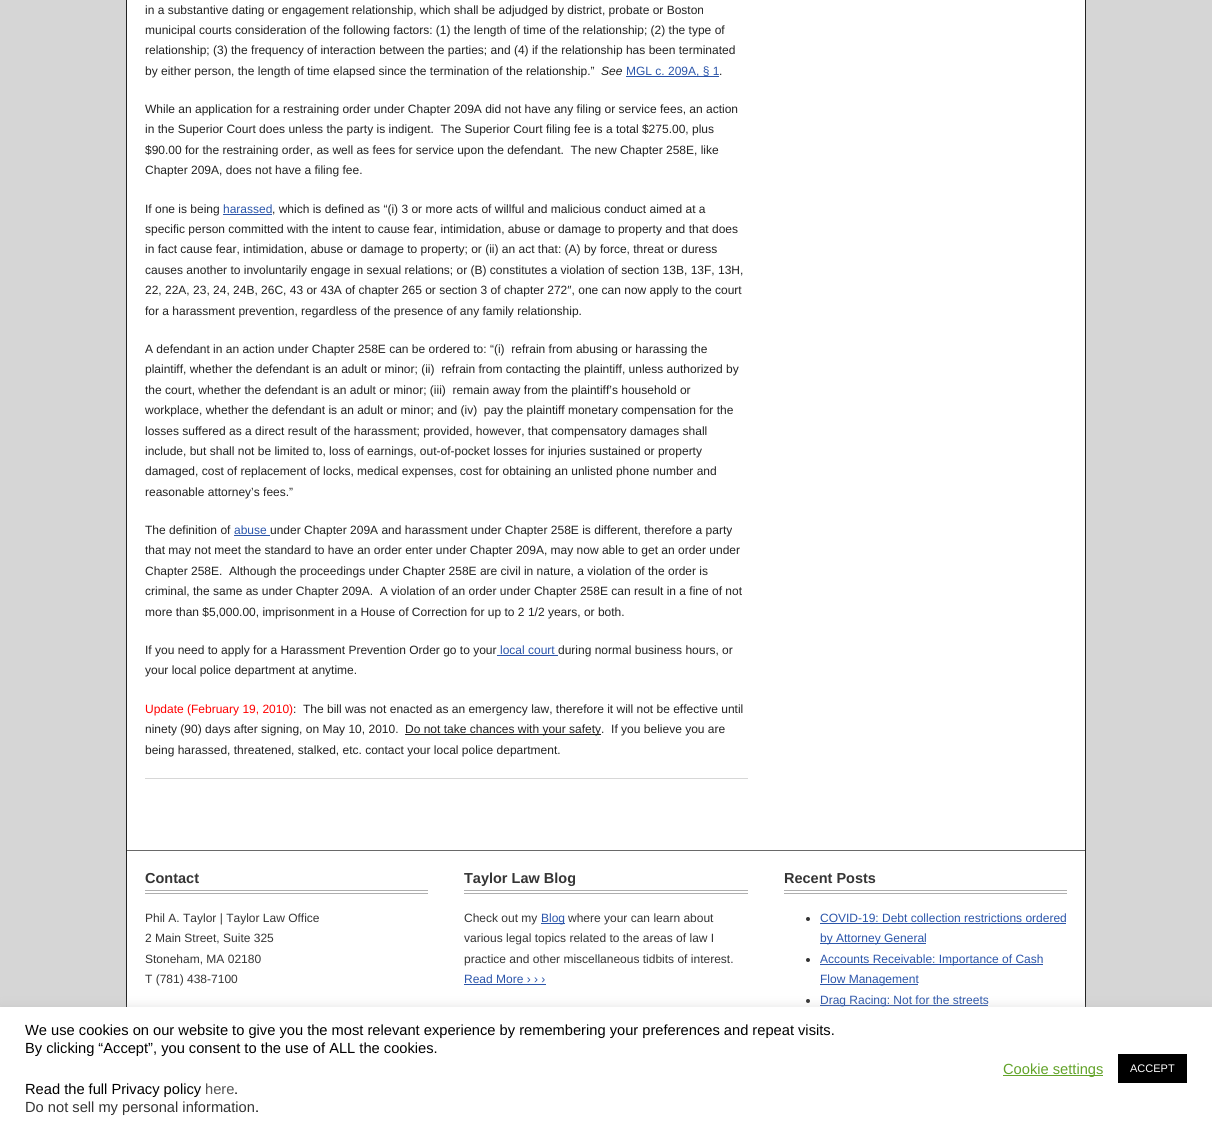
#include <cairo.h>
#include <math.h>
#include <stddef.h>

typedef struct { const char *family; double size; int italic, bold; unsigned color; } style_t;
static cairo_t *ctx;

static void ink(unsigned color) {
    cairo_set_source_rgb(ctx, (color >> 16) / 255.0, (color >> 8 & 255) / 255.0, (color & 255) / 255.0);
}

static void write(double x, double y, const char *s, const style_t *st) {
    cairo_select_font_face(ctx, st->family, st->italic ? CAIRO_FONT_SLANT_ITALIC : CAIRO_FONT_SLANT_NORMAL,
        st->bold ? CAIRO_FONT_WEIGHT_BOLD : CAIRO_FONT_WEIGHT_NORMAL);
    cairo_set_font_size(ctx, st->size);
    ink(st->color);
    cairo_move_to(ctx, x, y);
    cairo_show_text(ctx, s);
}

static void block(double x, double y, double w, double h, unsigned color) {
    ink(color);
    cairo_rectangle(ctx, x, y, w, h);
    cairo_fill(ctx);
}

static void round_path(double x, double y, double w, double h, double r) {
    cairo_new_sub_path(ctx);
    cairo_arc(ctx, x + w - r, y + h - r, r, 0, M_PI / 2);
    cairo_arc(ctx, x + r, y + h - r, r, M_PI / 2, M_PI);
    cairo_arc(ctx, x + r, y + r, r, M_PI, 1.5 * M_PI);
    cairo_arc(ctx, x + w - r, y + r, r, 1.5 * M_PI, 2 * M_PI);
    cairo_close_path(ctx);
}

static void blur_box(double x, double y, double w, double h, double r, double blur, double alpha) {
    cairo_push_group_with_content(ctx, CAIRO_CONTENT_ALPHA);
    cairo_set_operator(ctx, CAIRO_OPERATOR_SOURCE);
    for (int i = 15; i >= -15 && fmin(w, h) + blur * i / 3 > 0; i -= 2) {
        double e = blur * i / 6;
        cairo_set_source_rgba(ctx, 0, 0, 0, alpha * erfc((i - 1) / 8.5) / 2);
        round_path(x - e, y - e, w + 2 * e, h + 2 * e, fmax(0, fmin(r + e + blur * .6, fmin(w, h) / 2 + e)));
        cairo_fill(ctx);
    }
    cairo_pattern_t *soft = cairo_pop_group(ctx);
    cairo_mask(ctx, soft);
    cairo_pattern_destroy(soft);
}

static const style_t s1 = {"Liberation Sans", 12, 0, 0, 0x222222};
static const style_t s2 = {"Liberation Sans", 12, 1, 0, 0x222222};
static const style_t s3 = {"Liberation Sans", 12, 0, 0, 0x2b55aa};
static const style_t s4 = {"Liberation Sans", 12, 0, 0, 0xff0000};
static const style_t s5 = {"Liberation Sans", 14.5, 0, 1, 0x353535};
static const style_t s6 = {"Liberation Sans", 12, 0, 0, 0x353535};
static const style_t s7 = {"Liberation Sans", 14.67, 0, 0, 0x000000};
static const style_t s8 = {"Liberation Sans", 14.67, 0, 0, 0x555555};
static const style_t s9 = {"Liberation Sans", 14.67, 0, 0, 0x353535};
static const style_t s10 = {"Liberation Sans", 14.67, 0, 0, 0x62a329};
static const style_t s11 = {"Liberation Sans", 11, 0, 0, 0xffffff};

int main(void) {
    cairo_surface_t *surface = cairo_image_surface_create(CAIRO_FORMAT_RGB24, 1212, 1130);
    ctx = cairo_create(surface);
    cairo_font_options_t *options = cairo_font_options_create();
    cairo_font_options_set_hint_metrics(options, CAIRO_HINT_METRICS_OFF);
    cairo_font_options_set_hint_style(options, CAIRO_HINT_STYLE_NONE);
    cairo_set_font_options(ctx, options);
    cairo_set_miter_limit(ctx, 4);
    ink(0xd6d6d6);
    cairo_paint(ctx);
    cairo_rectangle(ctx, 126.5, -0.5, 959, 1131);
    ink(0x222222);
    cairo_set_line_width(ctx, 1);
    cairo_stroke(ctx);
    block(127, 0, 958, 850, 0xffffff);
    block(127, 850, 958, 1, 0x696969);
    write(145, 14, "in a substantive dating or engagement relationship, which shall be adjudged by district, probate or Boston", &s1);
    write(145, 34, "municipal courts consideration of the following factors: (1) the length of time of the relationship; (2) the type of", &s1);
    write(145, 54, "relationship; (3) the frequency of interaction between the parties; and (4) if the relationship has been terminated", &s1);
    write(145, 75, "by either person, the length of time elapsed since the termination of the relationship.”", &s1);
    write(601, 75, "See", &s2);
    block(626, 76, 93, 1, 0x2b55aa);
    write(626, 75, "MGL c. 209A, § 1", &s3);
    write(719, 75, ".", &s1);
    write(145, 113, "While an application for a restraining order under Chapter 209A did not have any filing or service fees, an action", &s1);
    write(145, 133, "in the Superior Court does unless the party is indigent.  The Superior Court filing fee is a total $275.00, plus", &s1);
    write(145, 154, "$90.00 for the restraining order, as well as fees for service upon the defendant.  The new Chapter 258E, like", &s1);
    write(145, 174, "Chapter 209A, does not have a filing fee.", &s1);
    write(145, 213, "If one is being", &s1);
    write(223, 213, "harassed", &s3);
    block(223, 214, 49, 1, 0x2b55aa);
    write(272, 213, ", which is defined as “(i) 3 or more acts of willful and malicious conduct aimed at a", &s1);
    write(145, 233, "specific person committed with the intent to cause fear, intimidation, abuse or damage to property and that does", &s1);
    write(145, 253, "in fact cause fear, intimidation, abuse or damage to property; or (ii) an act that: (A) by force, threat or duress", &s1);
    write(145, 274, "causes another to involuntarily engage in sexual relations; or (B) constitutes a violation of section 13B, 13F, 13H,", &s1);
    write(145, 294, "22, 22A, 23, 24, 24B, 26C, 43 or 43A of chapter 265 or section 3 of chapter 272″, one can now apply to the court", &s1);
    write(145, 315, "for a harassment prevention, regardless of the presence of any family relationship.", &s1);
    write(145, 353, "A defendant in an action under Chapter 258E can be ordered to: “(i)  refrain from abusing or harassing the", &s1);
    write(145, 373, "plaintiff, whether the defendant is an adult or minor; (ii)  refrain from contacting the plaintiff, unless authorized by", &s1);
    write(145, 394, "the court, whether the defendant is an adult or minor; (iii)  remain away from the plaintiff’s household or", &s1);
    write(145, 414, "workplace, whether the defendant is an adult or minor; and (iv)  pay the plaintiff monetary compensation for the", &s1);
    write(145, 435, "losses suffered as a direct result of the harassment; provided, however, that compensatory damages shall", &s1);
    write(145, 455, "include, but shall not be limited to, loss of earnings, out-of-pocket losses for injuries sustained or property", &s1);
    write(145, 475, "damaged, cost of replacement of locks, medical expenses, cost for obtaining an unlisted phone number and", &s1);
    write(145, 496, "reasonable attorney’s fees.”", &s1);
    write(145, 534, "The definition of", &s1);
    write(234, 534, "abuse", &s3);
    block(234, 535, 36, 1, 0x2b55aa);
    write(270, 534, "under Chapter 209A and harassment under Chapter 258E is different, therefore a party", &s1);
    write(145, 554, "that may not meet the standard to have an order enter under Chapter 209A, may now able to get an order under", &s1);
    write(145, 575, "Chapter 258E.  Although the proceedings under Chapter 258E are civil in nature, a violation of the order is", &s1);
    write(145, 595, "criminal, the same as under Chapter 209A.  A violation of an order under Chapter 258E can result in a fine of not", &s1);
    write(145, 616, "more than $5,000.00, imprisonment in a House of Correction for up to 2 1/2 years, or both.", &s1);
    write(145, 654, "If you need to apply for a Harassment Prevention Order go to your", &s1);
    write(500, 654, "local court", &s3);
    block(497, 655, 61, 1, 0x2b55aa);
    write(558, 654, "during normal business hours, or", &s1);
    write(145, 674, "your local police department at anytime.", &s1);
    write(145, 713, "Update (February 19, 2010)", &s4);
    write(293, 713, ":  The bill was not enacted as an emergency law, therefore it will not be effective until", &s1);
    write(145, 733, "ninety (90) days after signing, on May 10, 2010.", &s1);
    block(405, 734, 196, 1, 0x222222);
    write(405, 733, "Do not take chances with your safety.  If you believe you are", &s1);
    write(145, 754, "being harassed, threatened, stalked, etc. contact your local police department.", &s1);
    block(145, 778, 603, 1, 0xd7d7d7);
    block(127, 851, 958, 156, 0xffffff);
    block(145, 890, 283, 1, 0xaeaeae);
    block(145, 893, 283, 1, 0xaeaeae);
    write(145, 883, "Contact", &s5);
    write(145, 922, "Phil A. Taylor | Taylor Law Office", &s6);
    write(145, 942, "2 Main Street, Suite 325", &s6);
    write(145, 963, "Stoneham, MA 02180", &s6);
    write(145, 983, "T (781) 438-7100", &s6);
    block(464, 890, 284, 1, 0xaeaeae);
    block(464, 893, 284, 1, 0xaeaeae);
    write(464, 883, "Taylor Law Blog", &s5);
    write(464, 922, "Check out my", &s6);
    block(541, 923, 24, 1, 0x2b55aa);
    write(541, 922, "Blog", &s3);
    write(568, 922, "where your can learn about", &s6);
    write(464, 942, "various legal topics related to the areas of law I", &s6);
    write(464, 963, "practice and other miscellaneous tidbits of interest.", &s6);
    write(464, 983, "Read More › › ›", &s3);
    block(464, 984, 82, 1, 0x2b55aa);
    block(784, 890, 283, 1, 0xaeaeae);
    block(784, 893, 283, 1, 0xaeaeae);
    write(784, 883, "Recent Posts", &s5);
    ink(0x333333);
    cairo_new_path(ctx);
    cairo_arc(ctx, 808, 919, 2, 0, 2 * M_PI);
    cairo_fill(ctx);
    write(820, 922, "COVID-19: Debt collection restrictions ordered", &s3);
    block(820, 923, 246, 1, 0x2b55aa);
    block(820, 943, 106, 1, 0x2b55aa);
    write(820, 942, "by Attorney General", &s3);
    ink(0x333333);
    cairo_new_path(ctx);
    cairo_arc(ctx, 808, 960, 2, 0, 2 * M_PI);
    cairo_fill(ctx);
    block(820, 964, 223, 1, 0x2b55aa);
    write(820, 963, "Accounts Receivable: Importance of Cash", &s3);
    block(820, 984, 98, 1, 0x2b55aa);
    write(820, 983, "Flow Management", &s3);
    ink(0x333333);
    cairo_new_path(ctx);
    cairo_arc(ctx, 808, 1001, 2, 0, 2 * M_PI);
    cairo_fill(ctx);
    block(820, 1005, 168, 1, 0x2b55aa);
    write(820, 1004, "Drag Racing: Not for the streets", &s3);
    ink(0xacabab);
    blur_box(0, 1006, 1212, 123, 0, 5, 0.3);
    block(0, 1007, 1212, 123, 0xffffff);
    write(25, 1035, "We use cookies on our website to give you the most relevant experience by remembering your preferences and repeat visits.", &s7);
    write(25, 1053, "By clicking “Accept”, you consent to the use of ALL the cookies.", &s7);
    write(25, 1094, "Read the full Privacy policy", &s7);
    write(205, 1094, "here", &s8);
    write(234, 1094, ".", &s7);
    write(25, 1112, "Do not sell my personal information", &s9);
    write(255, 1112, ".", &s7);
    block(1003, 1075, 100, 1, 0x62a329);
    write(1003, 1074, "Cookie settings", &s10);
    block(1118, 1054, 69, 29, 0x000000);
    write(1130, 1072, "ACCEPT", &s11);
    cairo_surface_write_to_png(surface, "screenshot.png");
    cairo_font_options_destroy(options);
    cairo_destroy(ctx);
    cairo_surface_destroy(surface);
    return 0;
}
